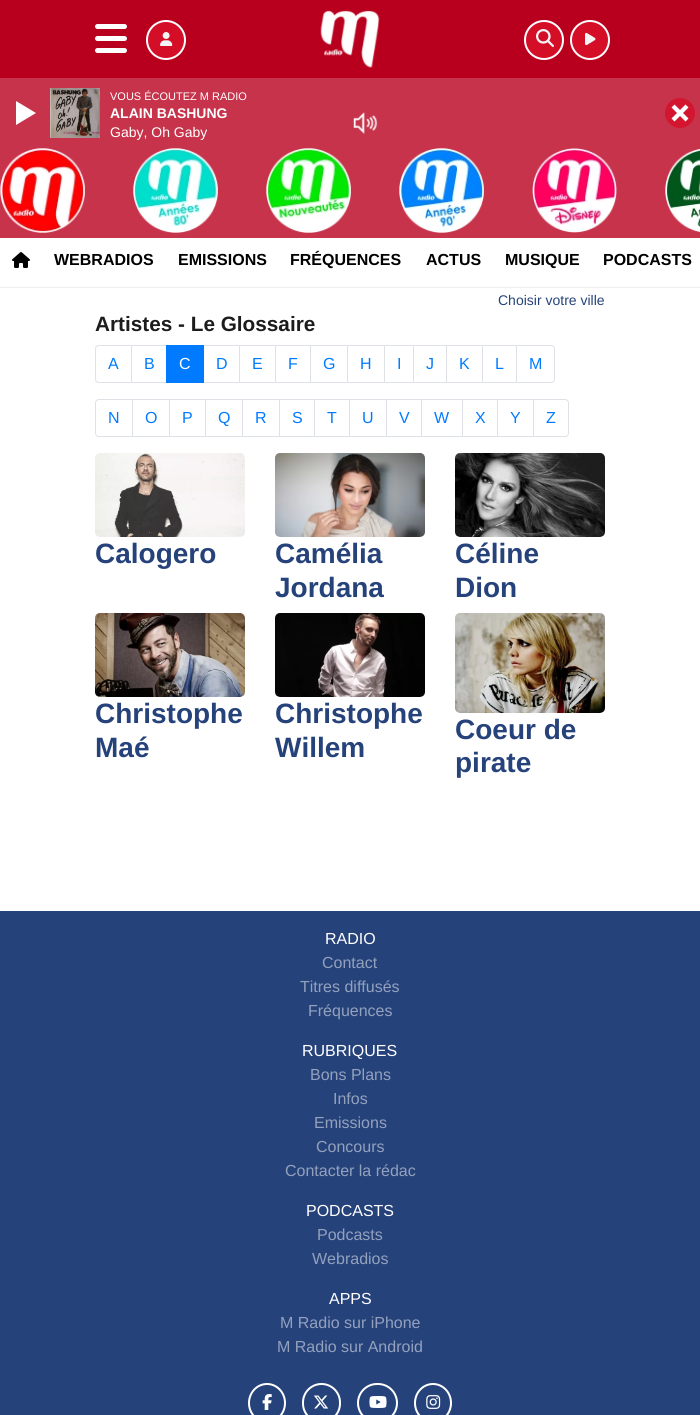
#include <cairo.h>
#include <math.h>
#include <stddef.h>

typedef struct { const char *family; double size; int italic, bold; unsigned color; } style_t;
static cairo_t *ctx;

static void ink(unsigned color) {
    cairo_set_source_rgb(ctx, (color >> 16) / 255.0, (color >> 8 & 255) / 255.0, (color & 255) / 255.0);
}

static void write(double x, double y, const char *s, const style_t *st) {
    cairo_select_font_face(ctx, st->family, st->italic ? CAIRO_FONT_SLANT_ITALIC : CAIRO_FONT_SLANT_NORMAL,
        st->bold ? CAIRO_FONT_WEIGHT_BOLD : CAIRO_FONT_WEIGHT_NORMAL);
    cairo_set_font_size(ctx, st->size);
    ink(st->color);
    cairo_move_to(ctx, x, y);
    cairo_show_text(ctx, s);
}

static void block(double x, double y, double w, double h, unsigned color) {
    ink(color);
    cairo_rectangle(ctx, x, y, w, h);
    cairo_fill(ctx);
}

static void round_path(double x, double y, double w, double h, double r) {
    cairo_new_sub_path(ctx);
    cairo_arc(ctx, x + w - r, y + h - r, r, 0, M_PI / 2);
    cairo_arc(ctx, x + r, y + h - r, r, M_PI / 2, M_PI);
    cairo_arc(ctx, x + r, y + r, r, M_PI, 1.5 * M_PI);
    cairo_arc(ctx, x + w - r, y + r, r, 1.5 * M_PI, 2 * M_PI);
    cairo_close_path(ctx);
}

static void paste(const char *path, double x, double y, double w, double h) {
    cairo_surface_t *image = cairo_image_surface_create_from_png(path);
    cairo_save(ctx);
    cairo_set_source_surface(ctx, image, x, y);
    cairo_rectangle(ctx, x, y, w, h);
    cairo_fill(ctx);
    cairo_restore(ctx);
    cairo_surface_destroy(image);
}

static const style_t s1 = {"Liberation Sans", 11, 0, 0, 0xffffff};
static const style_t s2 = {"Liberation Sans", 14, 0, 1, 0xffffff};
static const style_t s3 = {"Liberation Sans", 14, 0, 0, 0xffffff};
static const style_t s4 = {"Liberation Sans", 16, 0, 1, 0x000000};
static const style_t s5 = {"Liberation Sans", 14, 0, 0, 0x26427a};
static const style_t s6 = {"Liberation Sans", 20.75, 0, 1, 0x1c1c1c};
static const style_t s7 = {"Liberation Sans", 16, 0, 0, 0x007bff};
static const style_t s8 = {"Liberation Sans", 16, 0, 0, 0xffffff};
static const style_t s9 = {"Liberation Sans", 28, 0, 1, 0x26427a};
static const style_t s10 = {"Liberation Sans", 16, 0, 0, 0x93a1bd};

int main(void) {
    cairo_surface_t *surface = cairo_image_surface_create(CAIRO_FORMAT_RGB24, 700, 1415);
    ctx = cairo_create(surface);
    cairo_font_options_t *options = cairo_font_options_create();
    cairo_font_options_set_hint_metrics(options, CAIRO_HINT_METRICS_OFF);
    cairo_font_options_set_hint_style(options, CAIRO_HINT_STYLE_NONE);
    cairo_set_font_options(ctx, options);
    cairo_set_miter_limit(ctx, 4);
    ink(0xffffff);
    cairo_paint(ctx);
    block(0, 78, 700, 160, 0xc6334b);
    paste("pic1.png", 50, 88, 50, 50);
    write(110, 100, "VOUS ÉCOUTEZ M RADIO", &s1);
    write(110, 118, "ALAIN BASHUNG", &s2);
    write(110, 137, "Gaby, Oh Gaby", &s3);
    cairo_new_path(ctx);
    cairo_move_to(ctx, 16, 125);
    cairo_line_to(ctx, 16, 101);
    cairo_line_to(ctx, 36, 113);
    cairo_close_path(ctx);
    cairo_fill(ctx);
    paste("pic2.png", 353, 112, 25, 22);
    ink(0xd3152f);
    cairo_arc(ctx, 680, 113, 15, 0, 2 * M_PI);
    cairo_fill(ctx);
    ink(0xffffff);
    cairo_new_path(ctx);
    cairo_move_to(ctx, 674.5, 104.5);
    cairo_line_to(ctx, 688.5, 118.5);
    cairo_line_to(ctx, 685.5, 121.5);
    cairo_line_to(ctx, 671.5, 107.5);
    cairo_close_path(ctx);
    cairo_fill(ctx);
    cairo_new_path(ctx);
    cairo_move_to(ctx, 671.5, 118.5);
    cairo_line_to(ctx, 685.5, 104.5);
    cairo_line_to(ctx, 688.5, 107.5);
    cairo_line_to(ctx, 674.5, 121.5);
    cairo_close_path(ctx);
    cairo_fill(ctx);
    paste("pic3.png", 0, 148, 85, 85);
    paste("pic4.png", 133, 148, 85, 85);
    paste("pic5.png", 266, 148, 85, 85);
    paste("pic6.png", 399, 148, 85, 85);
    paste("pic7.png", 532, 148, 85, 85);
    paste("pic8.png", 665, 149, 35, 84);
    block(0, 0, 700, 78, 0xb8001e);
    ink(0xffffff);
    round_path(95, 24, 32, 5, 2.5);
    cairo_fill(ctx);
    round_path(95, 36, 32, 5, 2.5);
    cairo_fill(ctx);
    round_path(95, 48, 32, 5, 2.5);
    cairo_fill(ctx);
    ink(0xd50e28);
    cairo_arc(ctx, 166, 40, 19, 0, 2 * M_PI);
    cairo_fill_preserve(ctx);
    ink(0xffffff);
    cairo_stroke(ctx);
    paste("pic9.png", 160, 32, 13, 14);
    paste("pic10.png", 320, 10, 60, 58);
    ink(0xd50e28);
    cairo_arc(ctx, 544, 40, 19, 0, 2 * M_PI);
    cairo_fill_preserve(ctx);
    ink(0xffffff);
    cairo_stroke(ctx);
    paste("pic11.png", 536, 29, 18, 18);
    ink(0xd50e28);
    cairo_arc(ctx, 590, 40, 19, 0, 2 * M_PI);
    cairo_fill_preserve(ctx);
    ink(0xffffff);
    cairo_stroke(ctx);
    paste("pic12.png", 585, 32, 11, 14);
    block(0, 287, 700, 1, 0xeeeeee);
    paste("pic13.png", 12, 252, 18, 16);
    write(54, 265, "WEBRADIOS", &s4);
    write(178, 265, "EMISSIONS", &s4);
    write(290, 265, "FRÉQUENCES", &s4);
    write(426, 265, "ACTUS", &s4);
    write(505, 265, "MUSIQUE", &s4);
    write(603, 265, "PODCASTS", &s4);
    write(498, 305, "Choisir votre ville", &s5);
    write(95, 331, "Artistes - Le Glossaire", &s6);
    cairo_new_path(ctx);
    cairo_move_to(ctx, 99, 345.5);
    cairo_line_to(ctx, 131.5, 345.5);
    cairo_line_to(ctx, 131.5, 382.5);
    cairo_line_to(ctx, 99, 382.5);
    cairo_curve_to(ctx, 97, 382.5, 95.5, 381, 95.5, 379);
    cairo_line_to(ctx, 95.5, 349);
    cairo_curve_to(ctx, 95.5, 347, 97, 345.5, 99, 345.5);
    cairo_close_path(ctx);
    ink(0xdee2e6);
    cairo_set_line_width(ctx, 1);
    cairo_stroke(ctx);
    write(108, 369, "A", &s7);
    cairo_rectangle(ctx, 131.5, 345.5, 35, 37);
    ink(0xdee2e6);
    cairo_stroke(ctx);
    write(144, 369, "B", &s7);
    cairo_rectangle(ctx, 203.5, 345.5, 36, 37);
    ink(0xdee2e6);
    cairo_stroke(ctx);
    block(166, 345, 38, 38, 0x007bff);
    write(179, 369, "C", &s8);
    write(216, 369, "D", &s7);
    cairo_rectangle(ctx, 239.5, 345.5, 36, 37);
    ink(0xdee2e6);
    cairo_stroke(ctx);
    write(252, 369, "E", &s7);
    cairo_rectangle(ctx, 275.5, 345.5, 35, 37);
    ink(0xdee2e6);
    cairo_stroke(ctx);
    write(288, 369, "F", &s7);
    cairo_rectangle(ctx, 310.5, 345.5, 37, 37);
    ink(0xdee2e6);
    cairo_stroke(ctx);
    write(323, 369, "G", &s7);
    cairo_rectangle(ctx, 347.5, 345.5, 37, 37);
    ink(0xdee2e6);
    cairo_stroke(ctx);
    write(360, 369, "H", &s7);
    cairo_rectangle(ctx, 384.5, 345.5, 29, 37);
    ink(0xdee2e6);
    cairo_stroke(ctx);
    write(397, 369, "I", &s7);
    cairo_rectangle(ctx, 413.5, 345.5, 33, 37);
    ink(0xdee2e6);
    cairo_stroke(ctx);
    write(426, 369, "J", &s7);
    cairo_rectangle(ctx, 446.5, 345.5, 36, 37);
    ink(0xdee2e6);
    cairo_stroke(ctx);
    write(459, 369, "K", &s7);
    cairo_rectangle(ctx, 482.5, 345.5, 34, 37);
    ink(0xdee2e6);
    cairo_stroke(ctx);
    write(495, 369, "L", &s7);
    ink(0xffffff);
    cairo_new_path(ctx);
    cairo_move_to(ctx, 516.5, 345.5);
    cairo_line_to(ctx, 551, 345.5);
    cairo_curve_to(ctx, 553, 345.5, 554.5, 347, 554.5, 349);
    cairo_line_to(ctx, 554.5, 379);
    cairo_curve_to(ctx, 554.5, 381, 553, 382.5, 551, 382.5);
    cairo_line_to(ctx, 516.5, 382.5);
    cairo_close_path(ctx);
    cairo_fill_preserve(ctx);
    ink(0xdee2e6);
    cairo_stroke(ctx);
    write(529, 369, "M", &s7);
    cairo_new_path(ctx);
    cairo_move_to(ctx, 99, 399.5);
    cairo_line_to(ctx, 132.5, 399.5);
    cairo_line_to(ctx, 132.5, 436.5);
    cairo_line_to(ctx, 99, 436.5);
    cairo_curve_to(ctx, 97, 436.5, 95.5, 435, 95.5, 433);
    cairo_line_to(ctx, 95.5, 403);
    cairo_curve_to(ctx, 95.5, 401, 97, 399.5, 99, 399.5);
    cairo_close_path(ctx);
    ink(0xdee2e6);
    cairo_stroke(ctx);
    write(108, 423, "N", &s7);
    cairo_rectangle(ctx, 132.5, 399.5, 37, 37);
    ink(0xdee2e6);
    cairo_stroke(ctx);
    write(145, 423, "O", &s7);
    cairo_rectangle(ctx, 169.5, 399.5, 36, 37);
    ink(0xdee2e6);
    cairo_stroke(ctx);
    write(182, 423, "P", &s7);
    cairo_rectangle(ctx, 205.5, 399.5, 37, 37);
    ink(0xdee2e6);
    cairo_stroke(ctx);
    write(218, 423, "Q", &s7);
    cairo_rectangle(ctx, 242.5, 399.5, 37, 37);
    ink(0xdee2e6);
    cairo_stroke(ctx);
    write(255, 423, "R", &s7);
    cairo_rectangle(ctx, 279.5, 399.5, 35, 37);
    ink(0xdee2e6);
    cairo_stroke(ctx);
    write(292, 423, "S", &s7);
    cairo_rectangle(ctx, 314.5, 399.5, 35, 37);
    ink(0xdee2e6);
    cairo_stroke(ctx);
    write(327, 423, "T", &s7);
    cairo_rectangle(ctx, 349.5, 399.5, 37, 37);
    ink(0xdee2e6);
    cairo_stroke(ctx);
    write(362, 423, "U", &s7);
    cairo_rectangle(ctx, 386.5, 399.5, 35, 37);
    ink(0xdee2e6);
    cairo_stroke(ctx);
    write(399, 423, "V", &s7);
    cairo_rectangle(ctx, 421.5, 399.5, 41, 37);
    ink(0xdee2e6);
    cairo_stroke(ctx);
    write(434, 423, "W", &s7);
    cairo_rectangle(ctx, 462.5, 399.5, 35, 37);
    ink(0xdee2e6);
    cairo_stroke(ctx);
    write(475, 423, "X", &s7);
    cairo_rectangle(ctx, 497.5, 399.5, 36, 37);
    ink(0xdee2e6);
    cairo_stroke(ctx);
    write(510, 423, "Y", &s7);
    ink(0xffffff);
    cairo_new_path(ctx);
    cairo_move_to(ctx, 533.5, 399.5);
    cairo_line_to(ctx, 565, 399.5);
    cairo_curve_to(ctx, 567, 399.5, 568.5, 401, 568.5, 403);
    cairo_line_to(ctx, 568.5, 433);
    cairo_curve_to(ctx, 568.5, 435, 567, 436.5, 565, 436.5);
    cairo_line_to(ctx, 533.5, 436.5);
    cairo_close_path(ctx);
    cairo_fill_preserve(ctx);
    ink(0xdee2e6);
    cairo_stroke(ctx);
    write(546, 423, "Z", &s7);
    paste("pic14.png", 95, 453, 150, 84);
    write(95, 563, "Calogero", &s9);
    paste("pic15.png", 275, 453, 150, 84);
    write(275, 563, "Camélia", &s9);
    write(275, 597, "Jordana", &s9);
    paste("pic16.png", 455, 453, 150, 84);
    write(455, 563, "Céline", &s9);
    write(455, 597, "Dion", &s9);
    paste("pic17.png", 95, 613, 150, 84);
    write(95, 723, "Christophe", &s9);
    write(95, 757, "Maé", &s9);
    paste("pic18.png", 275, 613, 150, 84);
    write(275, 723, "Christophe", &s9);
    write(275, 757, "Willem", &s9);
    paste("pic19.png", 455, 613, 150, 100);
    write(455, 739, "Coeur de", &s9);
    write(455, 772, "pirate", &s9);
    block(0, 911, 700, 504, 0x26427a);
    write(325, 944, "RADIO", &s8);
    write(322, 968, "Contact", &s10);
    write(300, 992, "Titres diffusés", &s10);
    write(308, 1016, "Fréquences", &s10);
    write(302, 1056, "RUBRIQUES", &s8);
    write(310, 1080, "Bons Plans", &s10);
    write(333, 1104, "Infos", &s10);
    write(314, 1128, "Emissions", &s10);
    write(316, 1152, "Concours", &s10);
    write(285, 1176, "Contacter la rédac", &s10);
    write(306, 1216, "PODCASTS", &s8);
    write(317, 1240, "Podcasts", &s10);
    write(312, 1264, "Webradios", &s10);
    write(329, 1304, "APPS", &s8);
    write(280, 1328, "M Radio sur iPhone", &s10);
    write(277, 1352, "M Radio sur Android", &s10);
    cairo_new_path(ctx);
    cairo_move_to(ctx, 267, 1384);
    cairo_curve_to(ctx, 277, 1384, 285, 1392.5, 285, 1403);
    cairo_curve_to(ctx, 285, 1413.5, 277, 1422, 267, 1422);
    cairo_curve_to(ctx, 257, 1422, 249, 1413.5, 249, 1403);
    cairo_curve_to(ctx, 249, 1392.5, 257, 1384, 267, 1384);
    cairo_close_path(ctx);
    ink(0xffffff);
    cairo_set_line_width(ctx, 2);
    cairo_stroke(ctx);
    paste("pic20.png", 262, 1394, 10, 16);
    round_path(303, 1384, 37, 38, 18.5);
    cairo_stroke(ctx);
    paste("pic21.png", 314, 1395, 15, 14);
    round_path(358, 1384, 39, 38, 19);
    cairo_stroke(ctx);
    paste("pic22.png", 369, 1396, 18, 12);
    cairo_new_path(ctx);
    cairo_move_to(ctx, 433, 1384);
    cairo_curve_to(ctx, 443, 1384, 451, 1392.5, 451, 1403);
    cairo_curve_to(ctx, 451, 1413.5, 443, 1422, 433, 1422);
    cairo_curve_to(ctx, 423, 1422, 415, 1413.5, 415, 1403);
    cairo_curve_to(ctx, 415, 1392.5, 423, 1384, 433, 1384);
    cairo_close_path(ctx);
    cairo_stroke(ctx);
    paste("pic23.png", 426, 1395, 15, 14);
    cairo_surface_write_to_png(surface, "screenshot.png");
    cairo_font_options_destroy(options);
    cairo_destroy(ctx);
    cairo_surface_destroy(surface);
    return 0;
}
